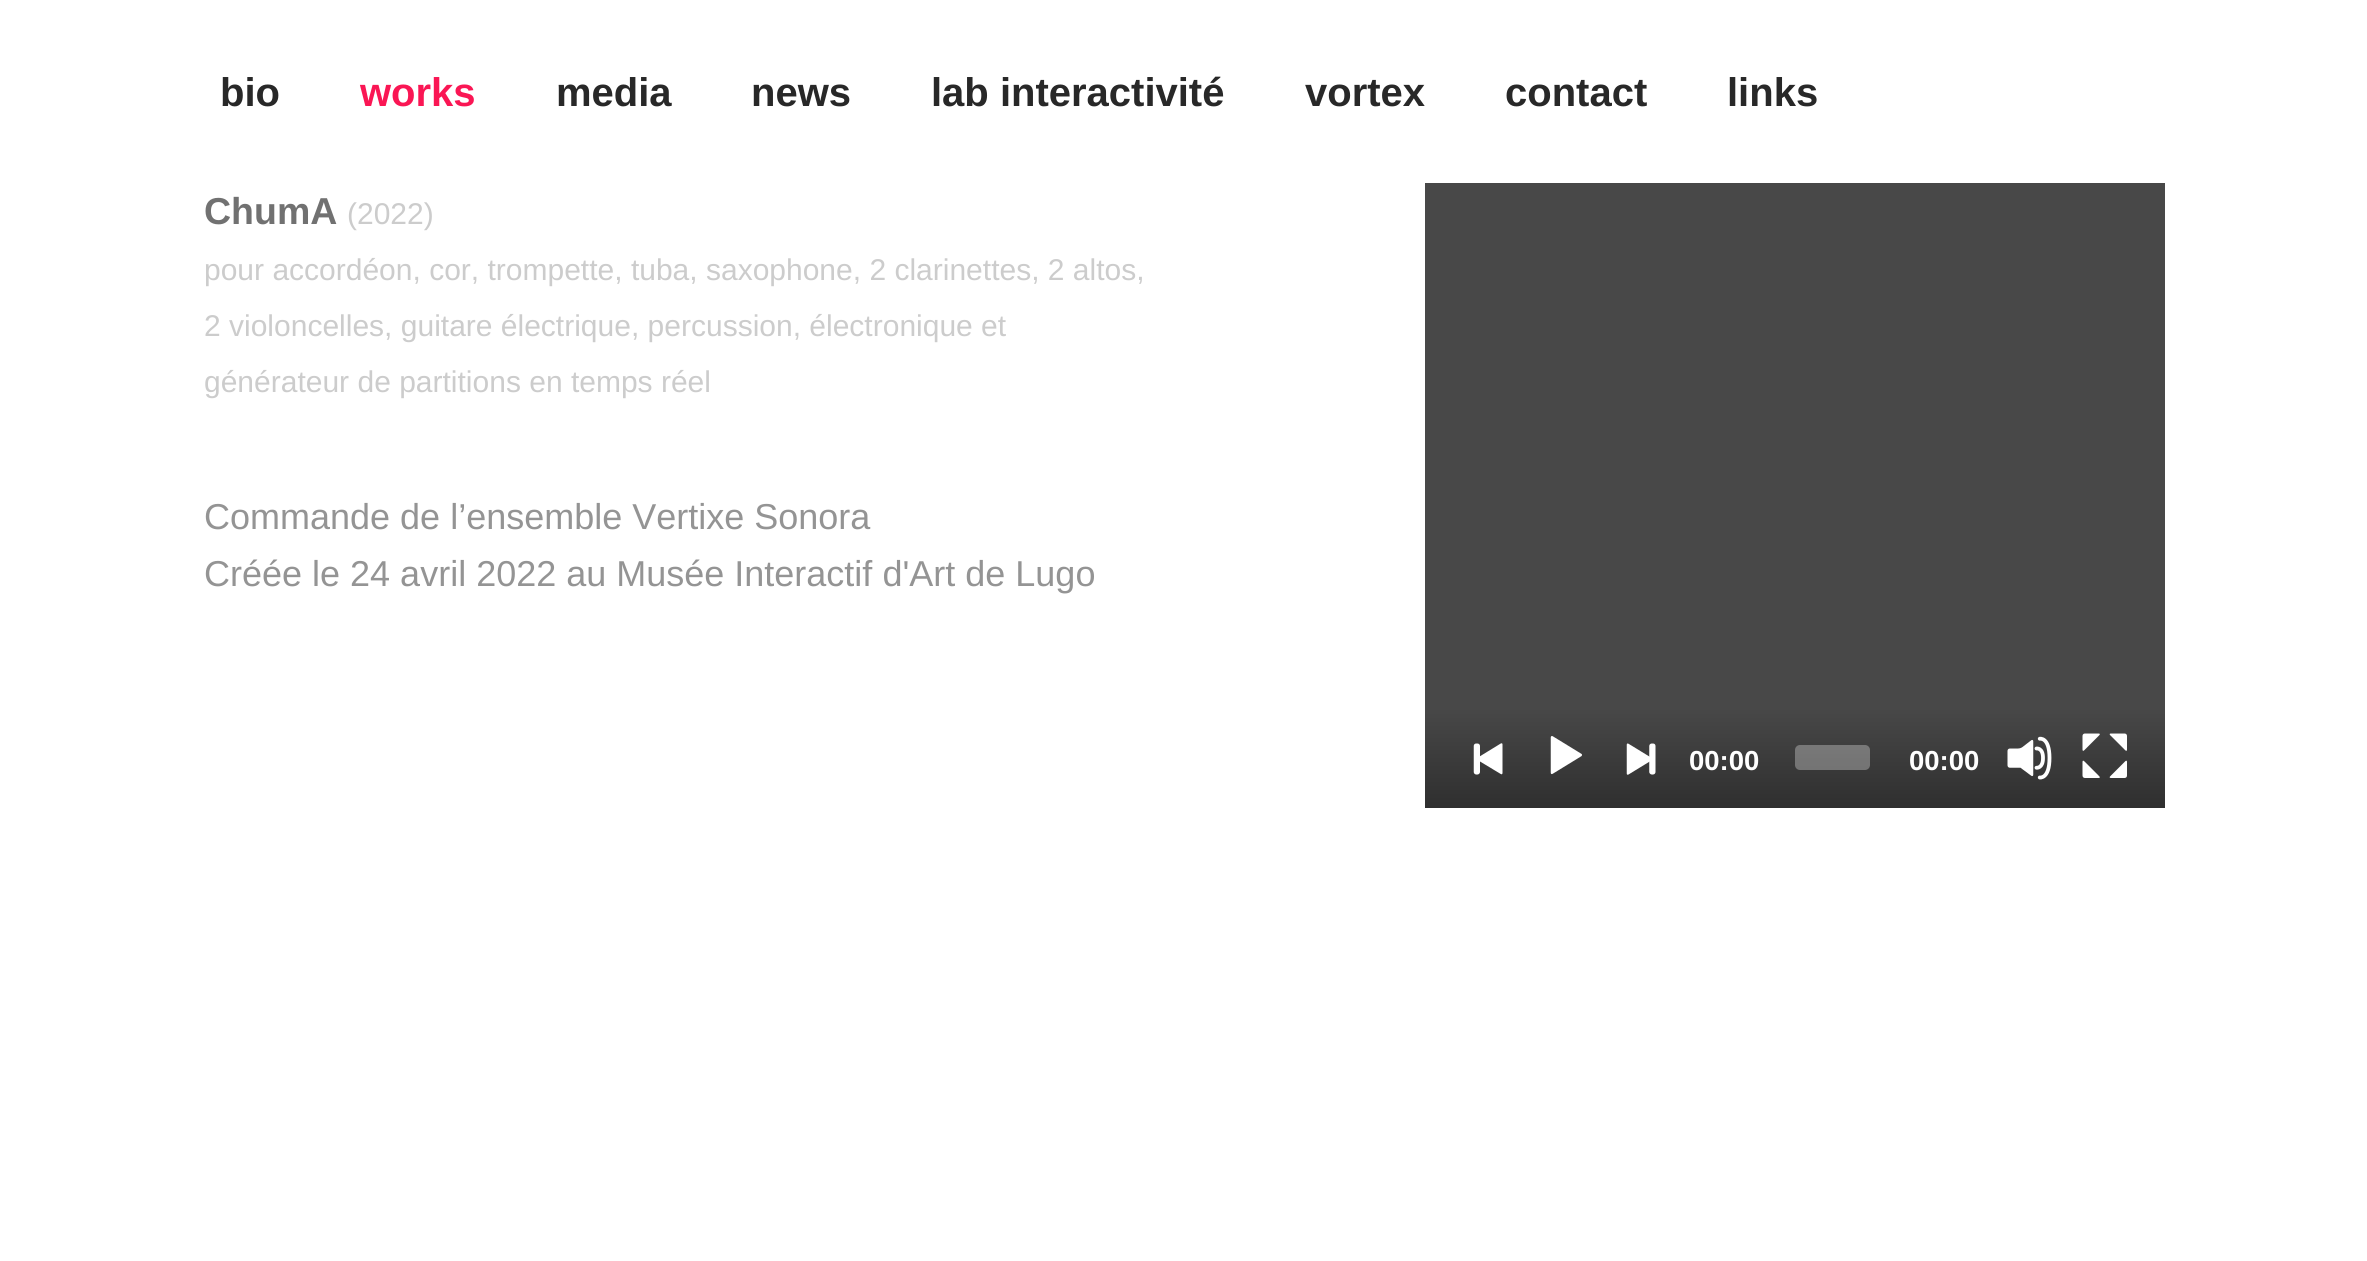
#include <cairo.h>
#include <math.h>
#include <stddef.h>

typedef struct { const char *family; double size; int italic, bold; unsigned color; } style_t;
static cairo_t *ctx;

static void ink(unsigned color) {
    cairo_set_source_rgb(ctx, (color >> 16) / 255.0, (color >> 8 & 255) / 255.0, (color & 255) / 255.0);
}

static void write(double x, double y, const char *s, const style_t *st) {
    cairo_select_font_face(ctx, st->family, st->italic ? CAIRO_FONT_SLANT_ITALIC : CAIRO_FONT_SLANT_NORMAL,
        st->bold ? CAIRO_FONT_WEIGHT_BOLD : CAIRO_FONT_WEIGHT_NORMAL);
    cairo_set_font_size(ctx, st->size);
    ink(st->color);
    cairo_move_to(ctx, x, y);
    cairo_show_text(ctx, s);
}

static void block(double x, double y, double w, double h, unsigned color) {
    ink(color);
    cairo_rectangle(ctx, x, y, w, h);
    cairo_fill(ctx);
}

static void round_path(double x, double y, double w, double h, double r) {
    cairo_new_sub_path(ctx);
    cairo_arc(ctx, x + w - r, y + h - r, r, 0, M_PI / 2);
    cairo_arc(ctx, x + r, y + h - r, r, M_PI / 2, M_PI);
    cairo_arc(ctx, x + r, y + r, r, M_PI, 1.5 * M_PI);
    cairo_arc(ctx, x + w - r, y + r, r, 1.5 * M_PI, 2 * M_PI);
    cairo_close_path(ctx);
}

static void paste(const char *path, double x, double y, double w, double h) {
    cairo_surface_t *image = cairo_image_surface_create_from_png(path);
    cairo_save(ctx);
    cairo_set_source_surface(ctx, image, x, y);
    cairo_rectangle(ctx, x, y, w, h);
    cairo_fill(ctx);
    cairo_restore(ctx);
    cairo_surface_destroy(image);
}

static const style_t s1 = {"Liberation Sans", 40, 0, 1, 0x282828};
static const style_t s2 = {"Liberation Sans", 40, 0, 1, 0xfa1654};
static const style_t s3 = {"Liberation Sans", 37.5, 0, 1, 0x717171};
static const style_t s4 = {"Liberation Sans", 30, 0, 0, 0xcccccc};
static const style_t s5 = {"Liberation Sans", 36, 0, 0, 0x949494};
static const style_t s6 = {"Liberation Sans", 27.5, 0, 1, 0xffffff};

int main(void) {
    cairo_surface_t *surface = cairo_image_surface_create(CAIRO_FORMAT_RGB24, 2367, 1261);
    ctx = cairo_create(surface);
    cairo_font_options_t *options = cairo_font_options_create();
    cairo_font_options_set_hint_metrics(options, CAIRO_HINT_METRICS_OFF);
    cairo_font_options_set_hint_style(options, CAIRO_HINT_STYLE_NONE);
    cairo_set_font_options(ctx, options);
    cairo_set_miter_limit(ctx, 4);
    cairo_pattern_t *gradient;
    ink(0xffffff);
    cairo_paint(ctx);
    write(220, 106, "bio", &s1);
    write(360, 106, "works", &s2);
    write(556, 106, "media", &s1);
    write(751, 106, "news", &s1);
    write(931, 106, "lab interactivité", &s1);
    write(1305, 106, "vortex", &s1);
    write(1505, 106, "contact", &s1);
    write(1727, 106, "links", &s1);
    write(204, 224, "ChumA", &s3);
    write(347, 224, "(2022)", &s4);
    write(204, 280, "pour accordéon, cor, trompette, tuba, saxophone, 2 clarinettes, 2 altos,", &s4);
    write(204, 336, "2 violoncelles, guitare électrique, percussion, électronique et", &s4);
    write(204, 392, "générateur de partitions en temps réel", &s4);
    write(204, 529, "Commande de l’ensemble Vertixe Sonora", &s5);
    write(204, 586, "Créée le 24 avril 2022 au Musée Interactif d'Art de Lugo", &s5);
    block(1425, 183, 740, 525, 0x484848);
    gradient = cairo_pattern_create_linear(1795, 708, 1795, 808);
    cairo_pattern_add_color_stop_rgba(gradient, 0, 0.282, 0.282, 0.282, 1);
    cairo_pattern_add_color_stop_rgba(gradient, 1, 0.184, 0.184, 0.184, 1);
    cairo_set_source(ctx, gradient);
    cairo_pattern_destroy(gradient);
    cairo_rectangle(ctx, 1425, 708, 740, 100);
    cairo_fill(ctx);
    paste("pic1.png", 1473, 743, 30, 32);
    paste("pic2.png", 1550, 736, 32, 39);
    paste("pic3.png", 1626, 743, 30, 32);
    write(1689, 770, "00:00", &s6);
    cairo_set_source_rgba(ctx, 1, 1, 1, 0.3);
    round_path(1795, 745, 75, 25, 5);
    cairo_fill(ctx);
    write(1909, 770, "00:00", &s6);
    paste("pic4.png", 2007, 736, 45, 44);
    paste("pic5.png", 2082, 733, 45, 45);
    cairo_surface_write_to_png(surface, "screenshot.png");
    cairo_font_options_destroy(options);
    cairo_destroy(ctx);
    cairo_surface_destroy(surface);
    return 0;
}
